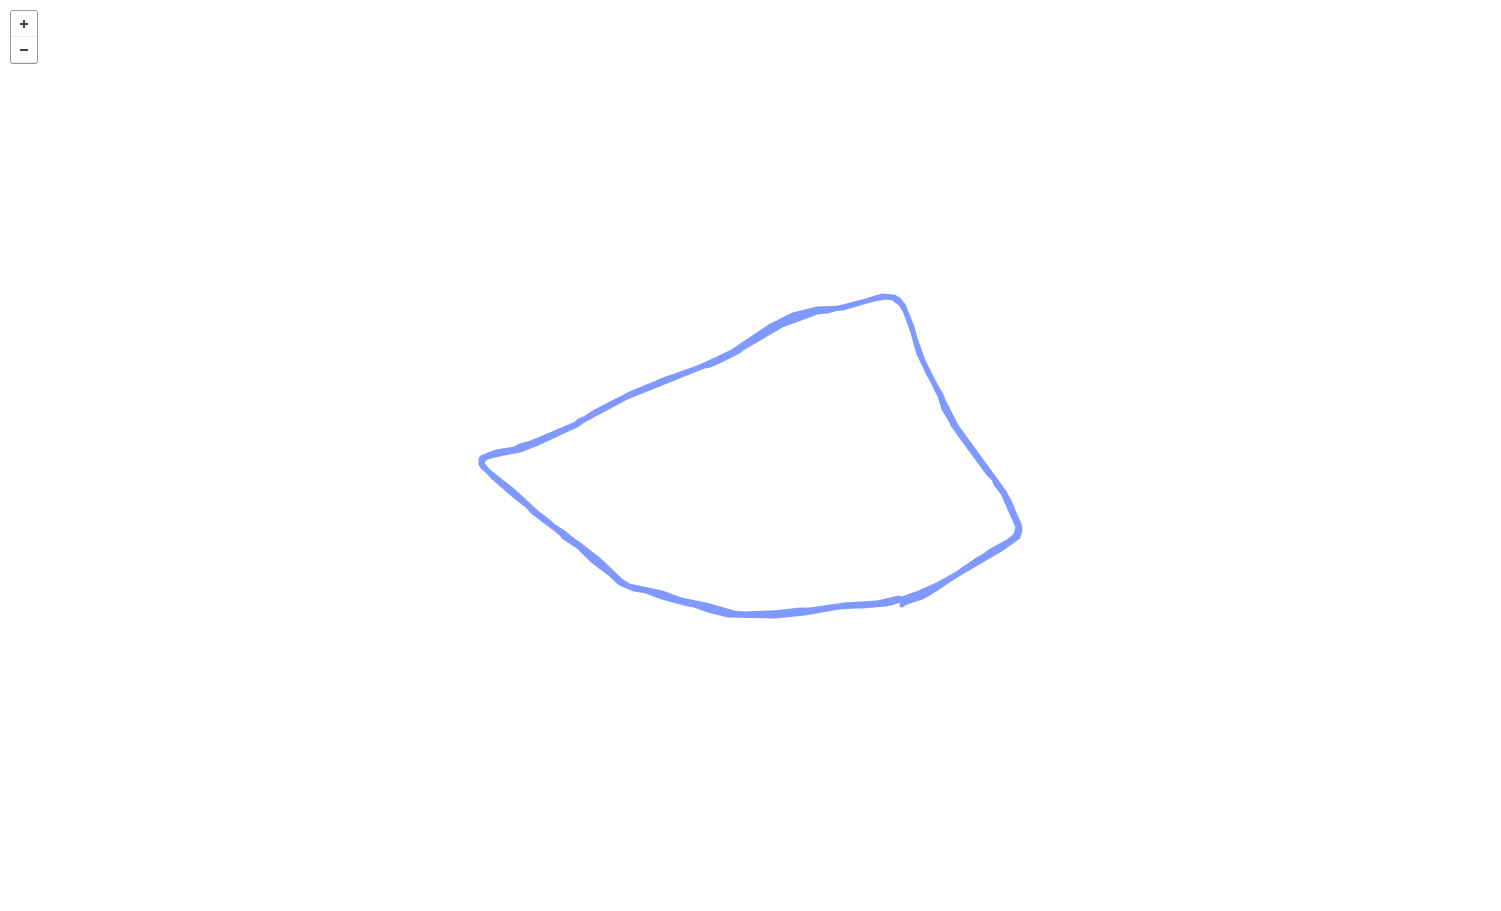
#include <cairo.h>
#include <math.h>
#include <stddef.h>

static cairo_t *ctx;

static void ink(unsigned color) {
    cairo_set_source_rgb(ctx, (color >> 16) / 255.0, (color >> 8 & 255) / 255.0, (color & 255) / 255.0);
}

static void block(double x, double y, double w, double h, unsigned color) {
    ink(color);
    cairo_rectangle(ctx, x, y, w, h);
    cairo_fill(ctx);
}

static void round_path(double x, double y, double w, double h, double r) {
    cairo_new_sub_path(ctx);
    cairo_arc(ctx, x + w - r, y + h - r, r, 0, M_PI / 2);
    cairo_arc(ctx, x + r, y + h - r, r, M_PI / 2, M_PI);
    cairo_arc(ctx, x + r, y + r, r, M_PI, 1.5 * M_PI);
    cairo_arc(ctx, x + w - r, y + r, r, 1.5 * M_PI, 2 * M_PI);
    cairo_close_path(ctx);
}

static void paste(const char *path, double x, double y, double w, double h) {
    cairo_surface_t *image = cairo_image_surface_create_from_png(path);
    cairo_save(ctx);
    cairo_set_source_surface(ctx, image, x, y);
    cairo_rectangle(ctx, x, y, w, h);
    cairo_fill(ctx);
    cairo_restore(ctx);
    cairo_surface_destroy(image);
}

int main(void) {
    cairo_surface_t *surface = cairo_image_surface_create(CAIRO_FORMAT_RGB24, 1501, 911);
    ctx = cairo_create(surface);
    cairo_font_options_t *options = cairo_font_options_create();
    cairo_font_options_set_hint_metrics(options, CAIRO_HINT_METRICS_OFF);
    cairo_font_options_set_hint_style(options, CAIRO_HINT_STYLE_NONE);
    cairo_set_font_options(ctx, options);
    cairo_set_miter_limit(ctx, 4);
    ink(0xffffff);
    cairo_paint(ctx);
    round_path(10.5, 10.5, 27, 53, 2.5);
    ink(0x999999);
    cairo_set_line_width(ctx, 1);
    cairo_stroke(ctx);
    paste("pic1.png", 20, 20, 8, 8);
    block(11, 36, 26, 1, 0xececec);
    paste("pic2.png", 20, 49, 8, 2);
    cairo_set_source_rgba(ctx, 0, 0, 0, 0.08);
    cairo_rectangle(ctx, 11, 62, 26, 1);
    cairo_fill(ctx);
    paste("pic3.png", 478, 293, 545, 326);
    cairo_surface_write_to_png(surface, "screenshot.png");
    cairo_font_options_destroy(options);
    cairo_destroy(ctx);
    cairo_surface_destroy(surface);
    return 0;
}
